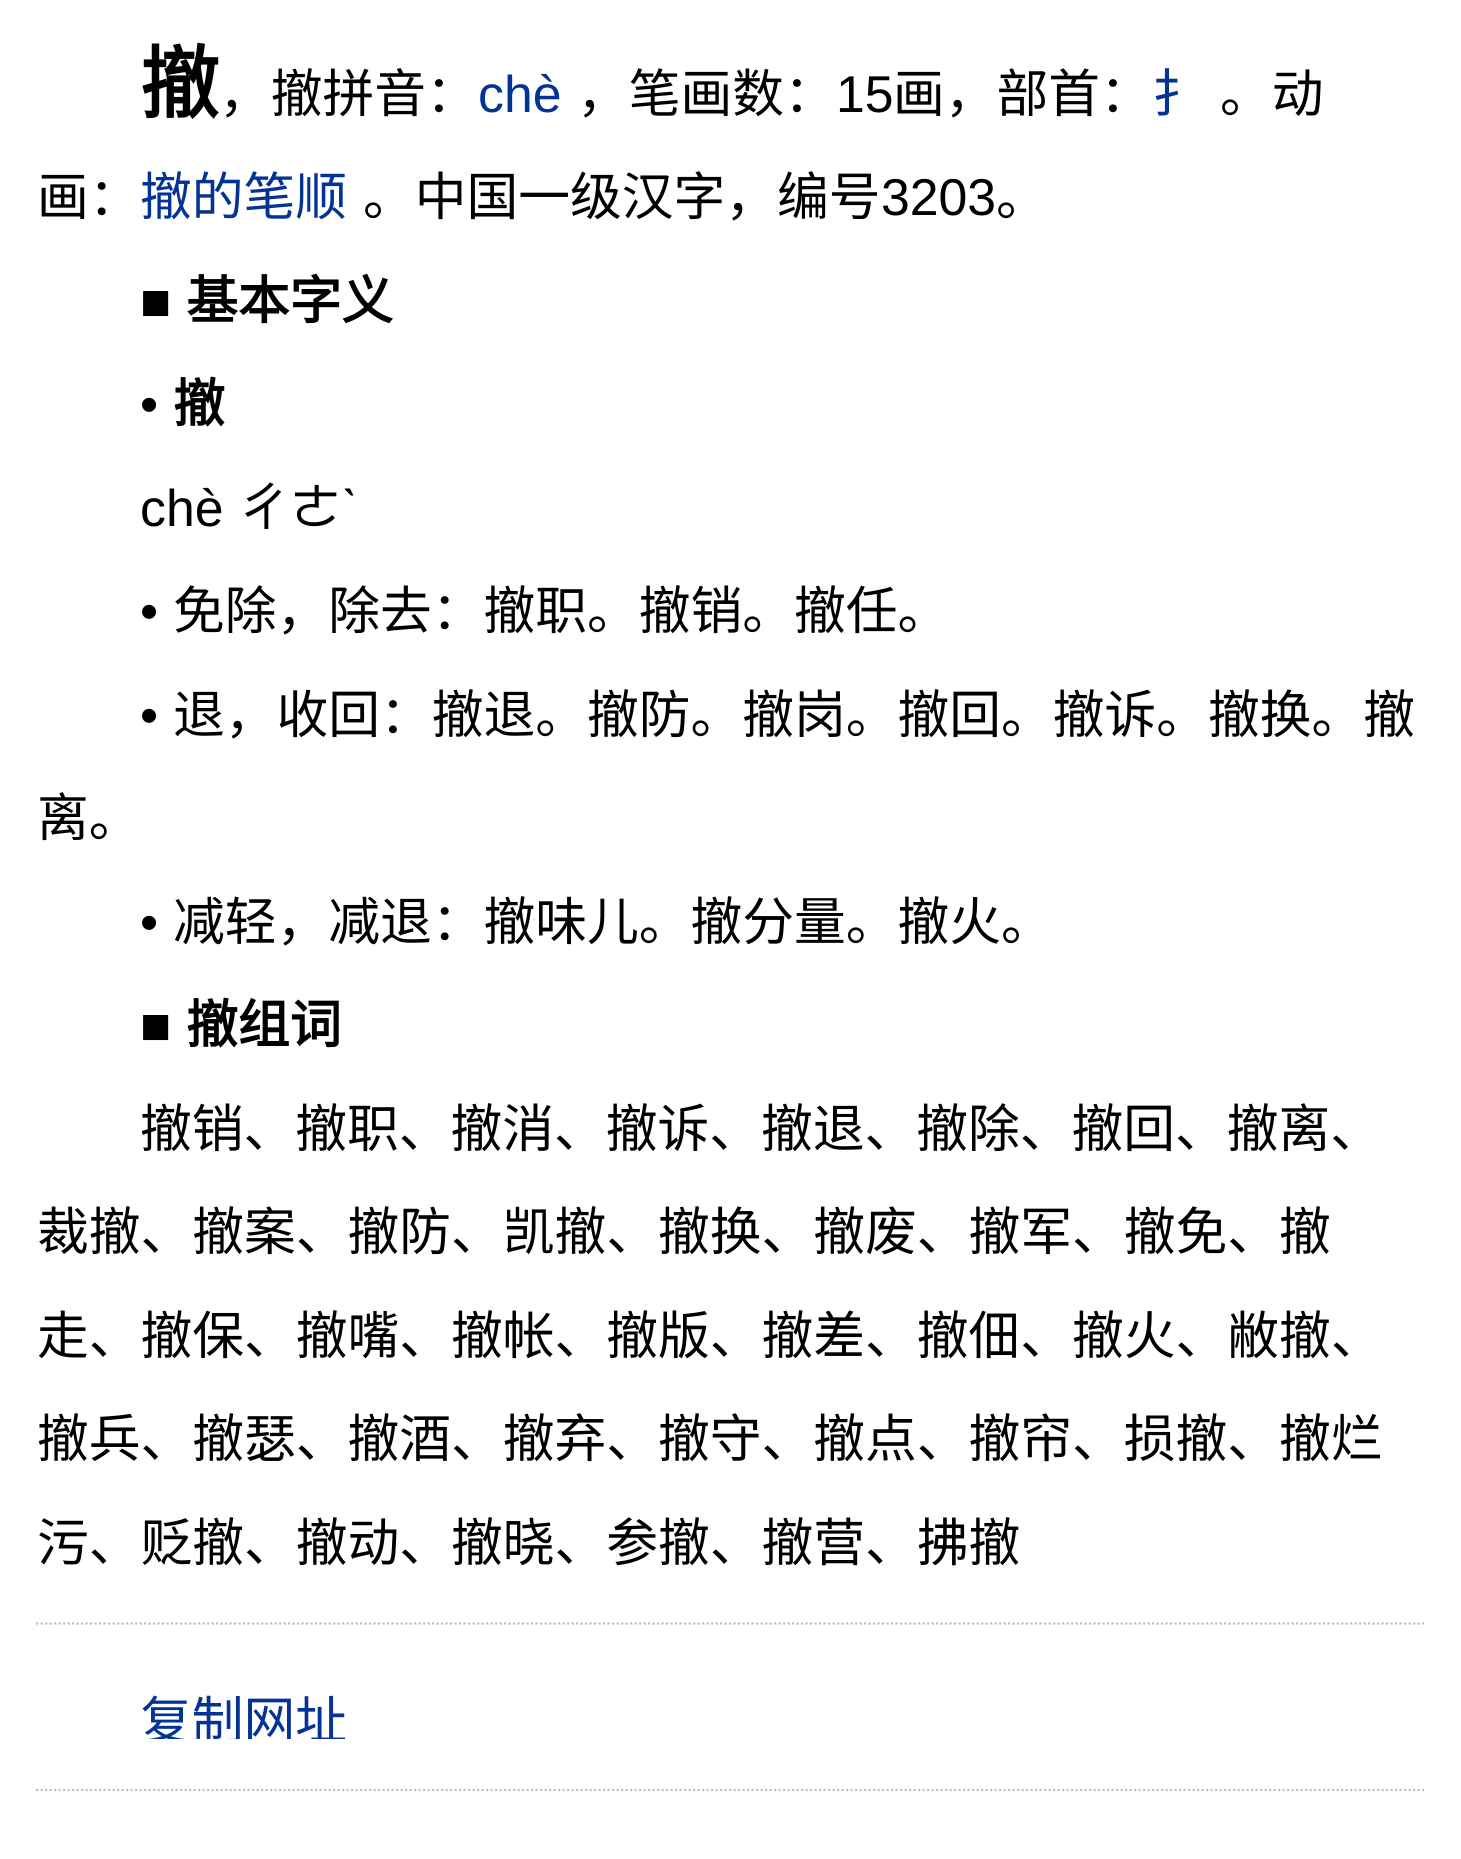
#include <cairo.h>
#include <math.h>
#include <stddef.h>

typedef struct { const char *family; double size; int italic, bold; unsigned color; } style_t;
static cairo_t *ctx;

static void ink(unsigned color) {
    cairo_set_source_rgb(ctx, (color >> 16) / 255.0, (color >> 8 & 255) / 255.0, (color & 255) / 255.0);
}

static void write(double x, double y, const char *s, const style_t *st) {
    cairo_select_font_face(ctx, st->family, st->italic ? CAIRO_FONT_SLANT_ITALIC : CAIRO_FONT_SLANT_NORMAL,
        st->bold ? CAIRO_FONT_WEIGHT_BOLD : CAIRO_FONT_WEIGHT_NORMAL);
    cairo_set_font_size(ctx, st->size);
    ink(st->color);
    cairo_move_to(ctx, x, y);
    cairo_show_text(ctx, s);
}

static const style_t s1 = {"Noto Sans CJK SC", 79, 0, 1, 0x000000};
static const style_t s2 = {"Noto Sans CJK SC", 51.75, 0, 0, 0x000000};
static const style_t s3 = {"Liberation Sans", 51.75, 0, 0, 0x043396};
static const style_t s4 = {"Liberation Sans", 51.75, 0, 0, 0x000000};
static const style_t s5 = {"Noto Sans CJK SC", 51.75, 0, 0, 0x043396};
static const style_t s6 = {"Noto Sans CJK SC", 51.75, 0, 1, 0x000000};

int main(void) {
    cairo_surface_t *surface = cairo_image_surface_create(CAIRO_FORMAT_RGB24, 1461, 1859);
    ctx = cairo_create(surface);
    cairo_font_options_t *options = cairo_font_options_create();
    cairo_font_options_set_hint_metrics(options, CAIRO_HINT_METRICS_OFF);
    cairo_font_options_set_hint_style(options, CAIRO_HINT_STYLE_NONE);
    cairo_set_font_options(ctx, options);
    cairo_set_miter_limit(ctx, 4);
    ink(0xffffff);
    cairo_paint(ctx);
    write(140, 112, "撤", &s1);
    write(219, 112, "，撤拼音：", &s2);
    write(478, 112, "chè", &s3);
    write(577, 112, "，笔画数：", &s2);
    write(836, 112, "15", &s4);
    write(893, 112, "画，部首：", &s2);
    write(1152, 112, "扌", &s5);
    write(1220, 112, "。动", &s2);
    write(37, 215, "画：", &s2);
    write(140, 215, "撤的笔顺", &s5);
    write(363, 215, "。中国一级汉字，编号", &s2);
    write(881, 215, "3203", &s4);
    write(996, 215, "。", &s2);
    write(140, 319, "■", &s4);
    write(186, 319, "基本字义", &s6);
    write(140, 422, "•", &s4);
    write(173, 422, "撤", &s6);
    write(140, 526, "chè", &s4);
    write(238, 526, "ㄔㄜ", &s2);
    write(341, 526, "ˋ", &s4);
    write(140, 629, "•", &s4);
    write(173, 629, "免除，除去：撤职。撤销。撤任。", &s2);
    write(140, 733, "•", &s4);
    write(173, 733, "退，收回：撤退。撤防。撤岗。撤回。撤诉。撤换。撤", &s2);
    write(37, 836, "离。", &s2);
    write(140, 940, "•", &s4);
    write(173, 940, "减轻，减退：撤味儿。撤分量。撤火。", &s2);
    write(140, 1043, "■", &s4);
    write(186, 1043, "撤组词", &s6);
    write(140, 1147, "撤销、撤职、撤消、撤诉、撤退、撤除、撤回、撤离、", &s2);
    write(37, 1250, "裁撤、撤案、撤防、凯撤、撤换、撤废、撤军、撤免、撤", &s2);
    write(37, 1354, "走、撤保、撤嘴、撤帐、撤版、撤差、撤佃、撤火、敝撤、", &s2);
    write(37, 1457, "撤兵、撤瑟、撤酒、撤弃、撤守、撤点、撤帘、损撤、撤烂", &s2);
    write(37, 1561, "污、贬撤、撤动、撤晓、参撤、撤营、拂撤", &s2);
    cairo_new_path(ctx);
    cairo_move_to(ctx, 36, 1623.5);
    cairo_line_to(ctx, 1426.5, 1623.5);
    ink(0xc0c0c0);
    cairo_set_line_width(ctx, 2.2);
    cairo_set_dash(ctx, (double[]){2.25, 2.25}, 2, 0);
    cairo_stroke(ctx);
    cairo_save(ctx);
    cairo_rectangle(ctx, 140, 1679, 238, 60);
    cairo_clip(ctx);
    write(140, 1739, "复制网址", &s5);
    cairo_restore(ctx);
    cairo_new_path(ctx);
    cairo_move_to(ctx, 36, 1790);
    cairo_line_to(ctx, 1426.5, 1790);
    cairo_stroke(ctx);
    cairo_surface_write_to_png(surface, "screenshot.png");
    cairo_font_options_destroy(options);
    cairo_destroy(ctx);
    cairo_surface_destroy(surface);
    return 0;
}
